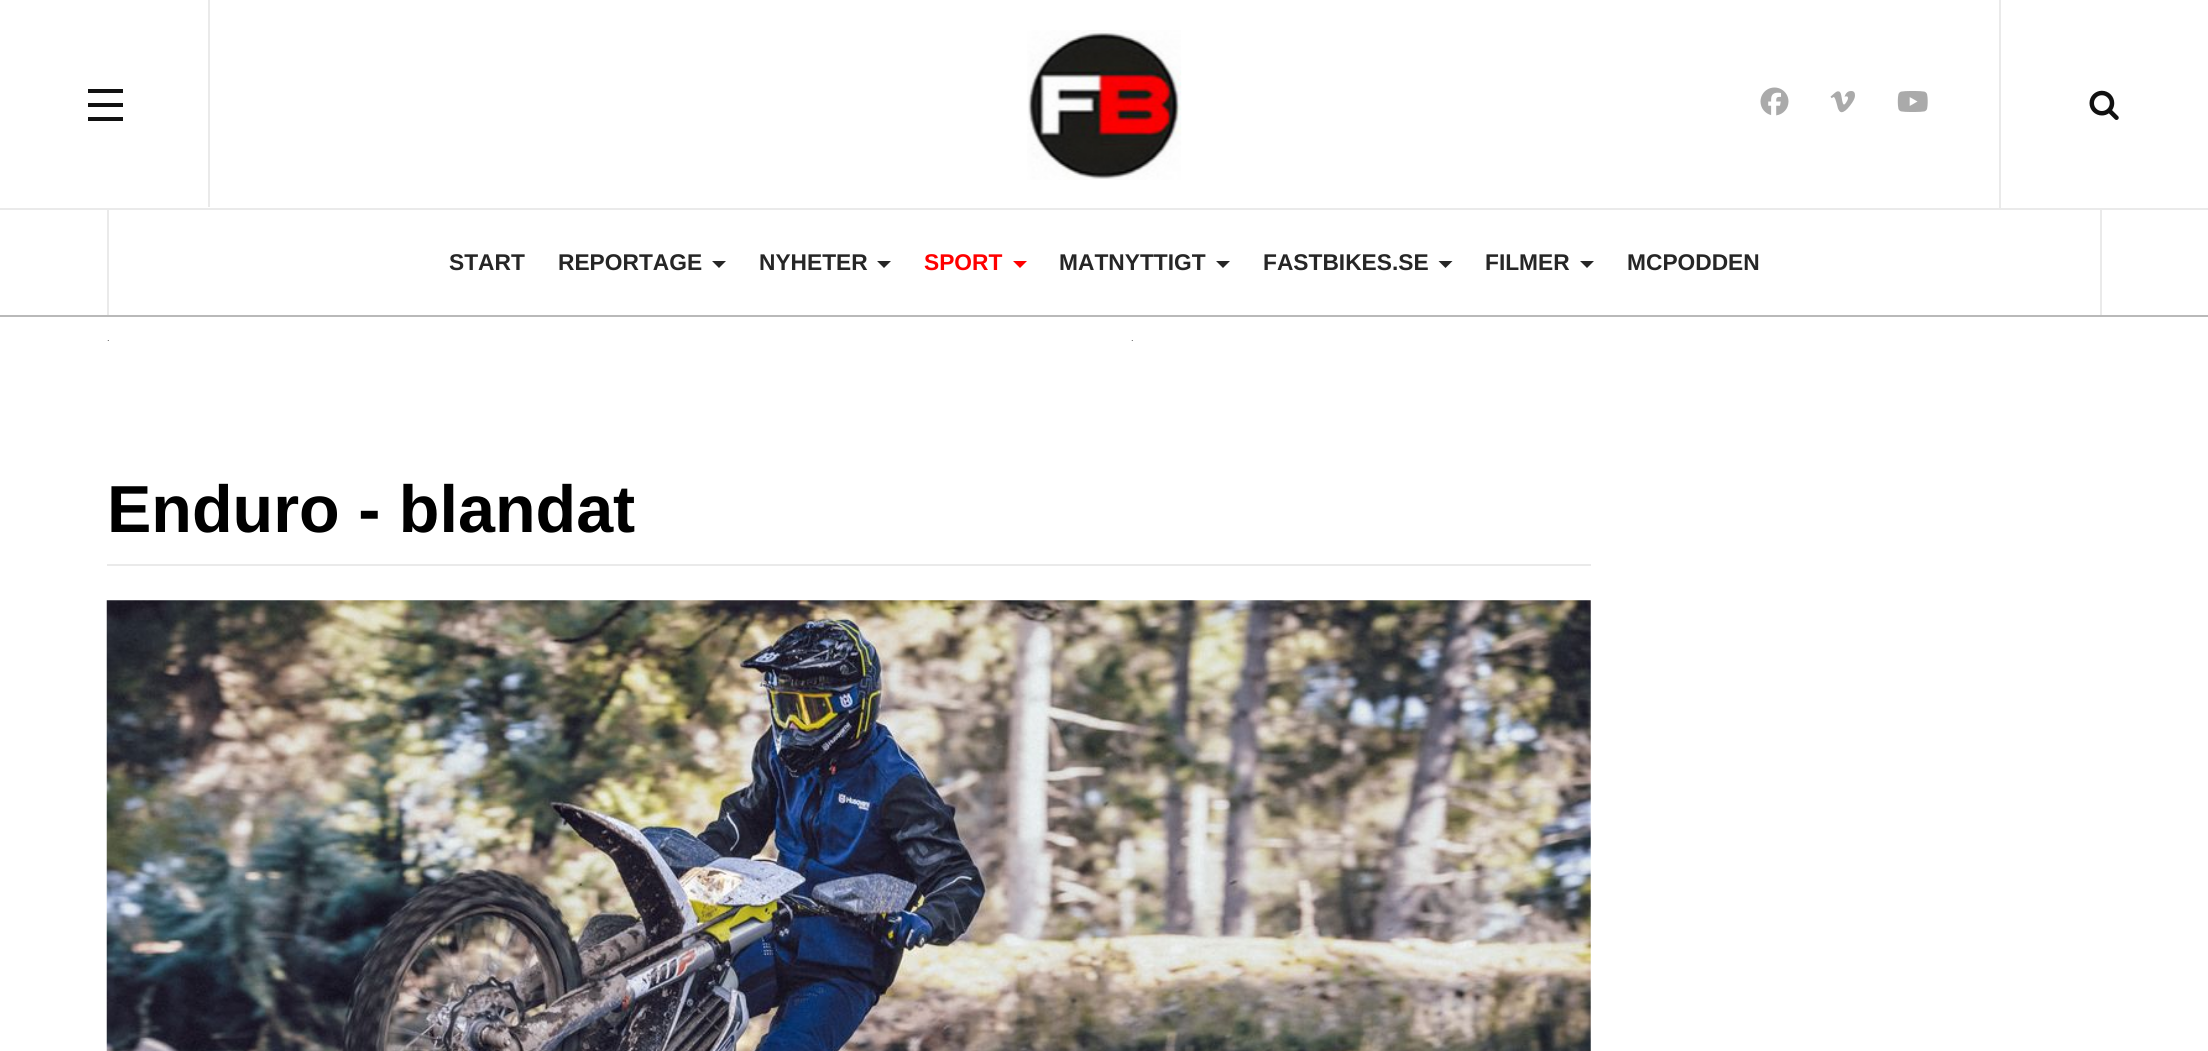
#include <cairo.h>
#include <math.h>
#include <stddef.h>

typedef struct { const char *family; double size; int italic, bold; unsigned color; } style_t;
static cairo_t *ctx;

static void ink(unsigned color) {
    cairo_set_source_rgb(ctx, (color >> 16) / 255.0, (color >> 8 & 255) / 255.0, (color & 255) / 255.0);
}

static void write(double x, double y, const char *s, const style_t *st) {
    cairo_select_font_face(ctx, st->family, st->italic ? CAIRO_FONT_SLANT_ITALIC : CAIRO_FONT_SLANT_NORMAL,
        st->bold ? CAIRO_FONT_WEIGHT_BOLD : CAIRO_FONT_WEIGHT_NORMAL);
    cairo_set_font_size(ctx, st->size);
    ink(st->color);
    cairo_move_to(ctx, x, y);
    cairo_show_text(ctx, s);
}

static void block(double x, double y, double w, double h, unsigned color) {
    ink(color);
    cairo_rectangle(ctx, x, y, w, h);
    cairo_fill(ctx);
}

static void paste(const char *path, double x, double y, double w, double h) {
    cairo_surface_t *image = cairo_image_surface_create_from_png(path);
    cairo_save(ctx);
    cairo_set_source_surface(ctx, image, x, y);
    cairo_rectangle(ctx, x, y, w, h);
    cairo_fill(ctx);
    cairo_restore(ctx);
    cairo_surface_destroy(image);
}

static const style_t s1 = {"Liberation Sans", 22.75, 0, 1, 0x262626};
static const style_t s2 = {"Liberation Sans", 22.75, 0, 1, 0xff0000};
static const style_t s3 = {"Liberation Sans", 9, 0, 0, 0x3c3c3c};
static const style_t s4 = {"Liberation Sans", 66.5, 0, 1, 0x000000};

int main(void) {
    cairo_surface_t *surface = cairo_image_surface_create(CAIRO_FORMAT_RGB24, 2208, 1051);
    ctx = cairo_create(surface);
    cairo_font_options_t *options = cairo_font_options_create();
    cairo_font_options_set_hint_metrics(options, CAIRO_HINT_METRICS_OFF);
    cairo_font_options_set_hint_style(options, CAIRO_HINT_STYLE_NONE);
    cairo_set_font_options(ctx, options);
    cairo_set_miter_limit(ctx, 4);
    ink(0xffffff);
    cairo_paint(ctx);
    block(0, 208, 2208, 2, 0xeaeaea);
    block(208, 0, 2, 207, 0xeaeaea);
    block(88, 103, 35, 4, 0x111111);
    block(88, 89, 35, 4, 0x111111);
    block(88, 117, 35, 4, 0x111111);
    paste("pic1.png", 1027, 30, 155, 150);
    paste("pic2.png", 1760, 87, 29, 29);
    paste("pic3.png", 1830, 91, 25, 22);
    paste("pic4.png", 1897, 91, 31, 21);
    block(1999, 0, 2, 208, 0xeaeaea);
    paste("pic5.png", 2089, 90, 30, 30);
    block(0, 315, 2208, 2, 0xb9b9b9);
    block(2100, 210, 2, 105, 0xeaeaea);
    block(107, 210, 2, 105, 0xeaeaea);
    write(449, 270, "START", &s1);
    write(558, 270, "REPORTAGE", &s1);
    cairo_new_path(ctx);
    cairo_move_to(ctx, 712, 261);
    cairo_line_to(ctx, 726, 261);
    cairo_line_to(ctx, 719, 268);
    cairo_close_path(ctx);
    cairo_fill(ctx);
    write(759, 270, "NYHETER", &s1);
    cairo_new_path(ctx);
    cairo_move_to(ctx, 877, 261);
    cairo_line_to(ctx, 891, 261);
    cairo_line_to(ctx, 884, 268);
    cairo_close_path(ctx);
    cairo_fill(ctx);
    write(924, 270, "SPORT", &s2);
    cairo_new_path(ctx);
    cairo_move_to(ctx, 1013, 261);
    cairo_line_to(ctx, 1027, 261);
    cairo_line_to(ctx, 1020, 268);
    cairo_close_path(ctx);
    cairo_fill(ctx);
    write(1059, 270, "MATNYTTIGT", &s1);
    cairo_new_path(ctx);
    cairo_move_to(ctx, 1216, 261);
    cairo_line_to(ctx, 1230, 261);
    cairo_line_to(ctx, 1223, 268);
    cairo_close_path(ctx);
    cairo_fill(ctx);
    write(1263, 270, "FASTBIKES.SE", &s1);
    cairo_new_path(ctx);
    cairo_move_to(ctx, 1438.5, 261);
    cairo_line_to(ctx, 1452.5, 261);
    cairo_line_to(ctx, 1445.5, 268);
    cairo_close_path(ctx);
    cairo_fill(ctx);
    write(1485, 270, "FILMER", &s1);
    cairo_new_path(ctx);
    cairo_move_to(ctx, 1580, 261);
    cairo_line_to(ctx, 1594, 261);
    cairo_line_to(ctx, 1587, 268);
    cairo_close_path(ctx);
    cairo_fill(ctx);
    write(1627, 270, "MCPODDEN", &s1);
    write(107, 341, ".", &s3);
    write(1131, 341, ".", &s3);
    block(107, 564, 1484, 2, 0xeaeaea);
    write(107, 532, "Enduro - blandat", &s4);
    paste("pic6.png", 106, 600, 1485, 451);
    cairo_surface_write_to_png(surface, "screenshot.png");
    cairo_font_options_destroy(options);
    cairo_destroy(ctx);
    cairo_surface_destroy(surface);
    return 0;
}
